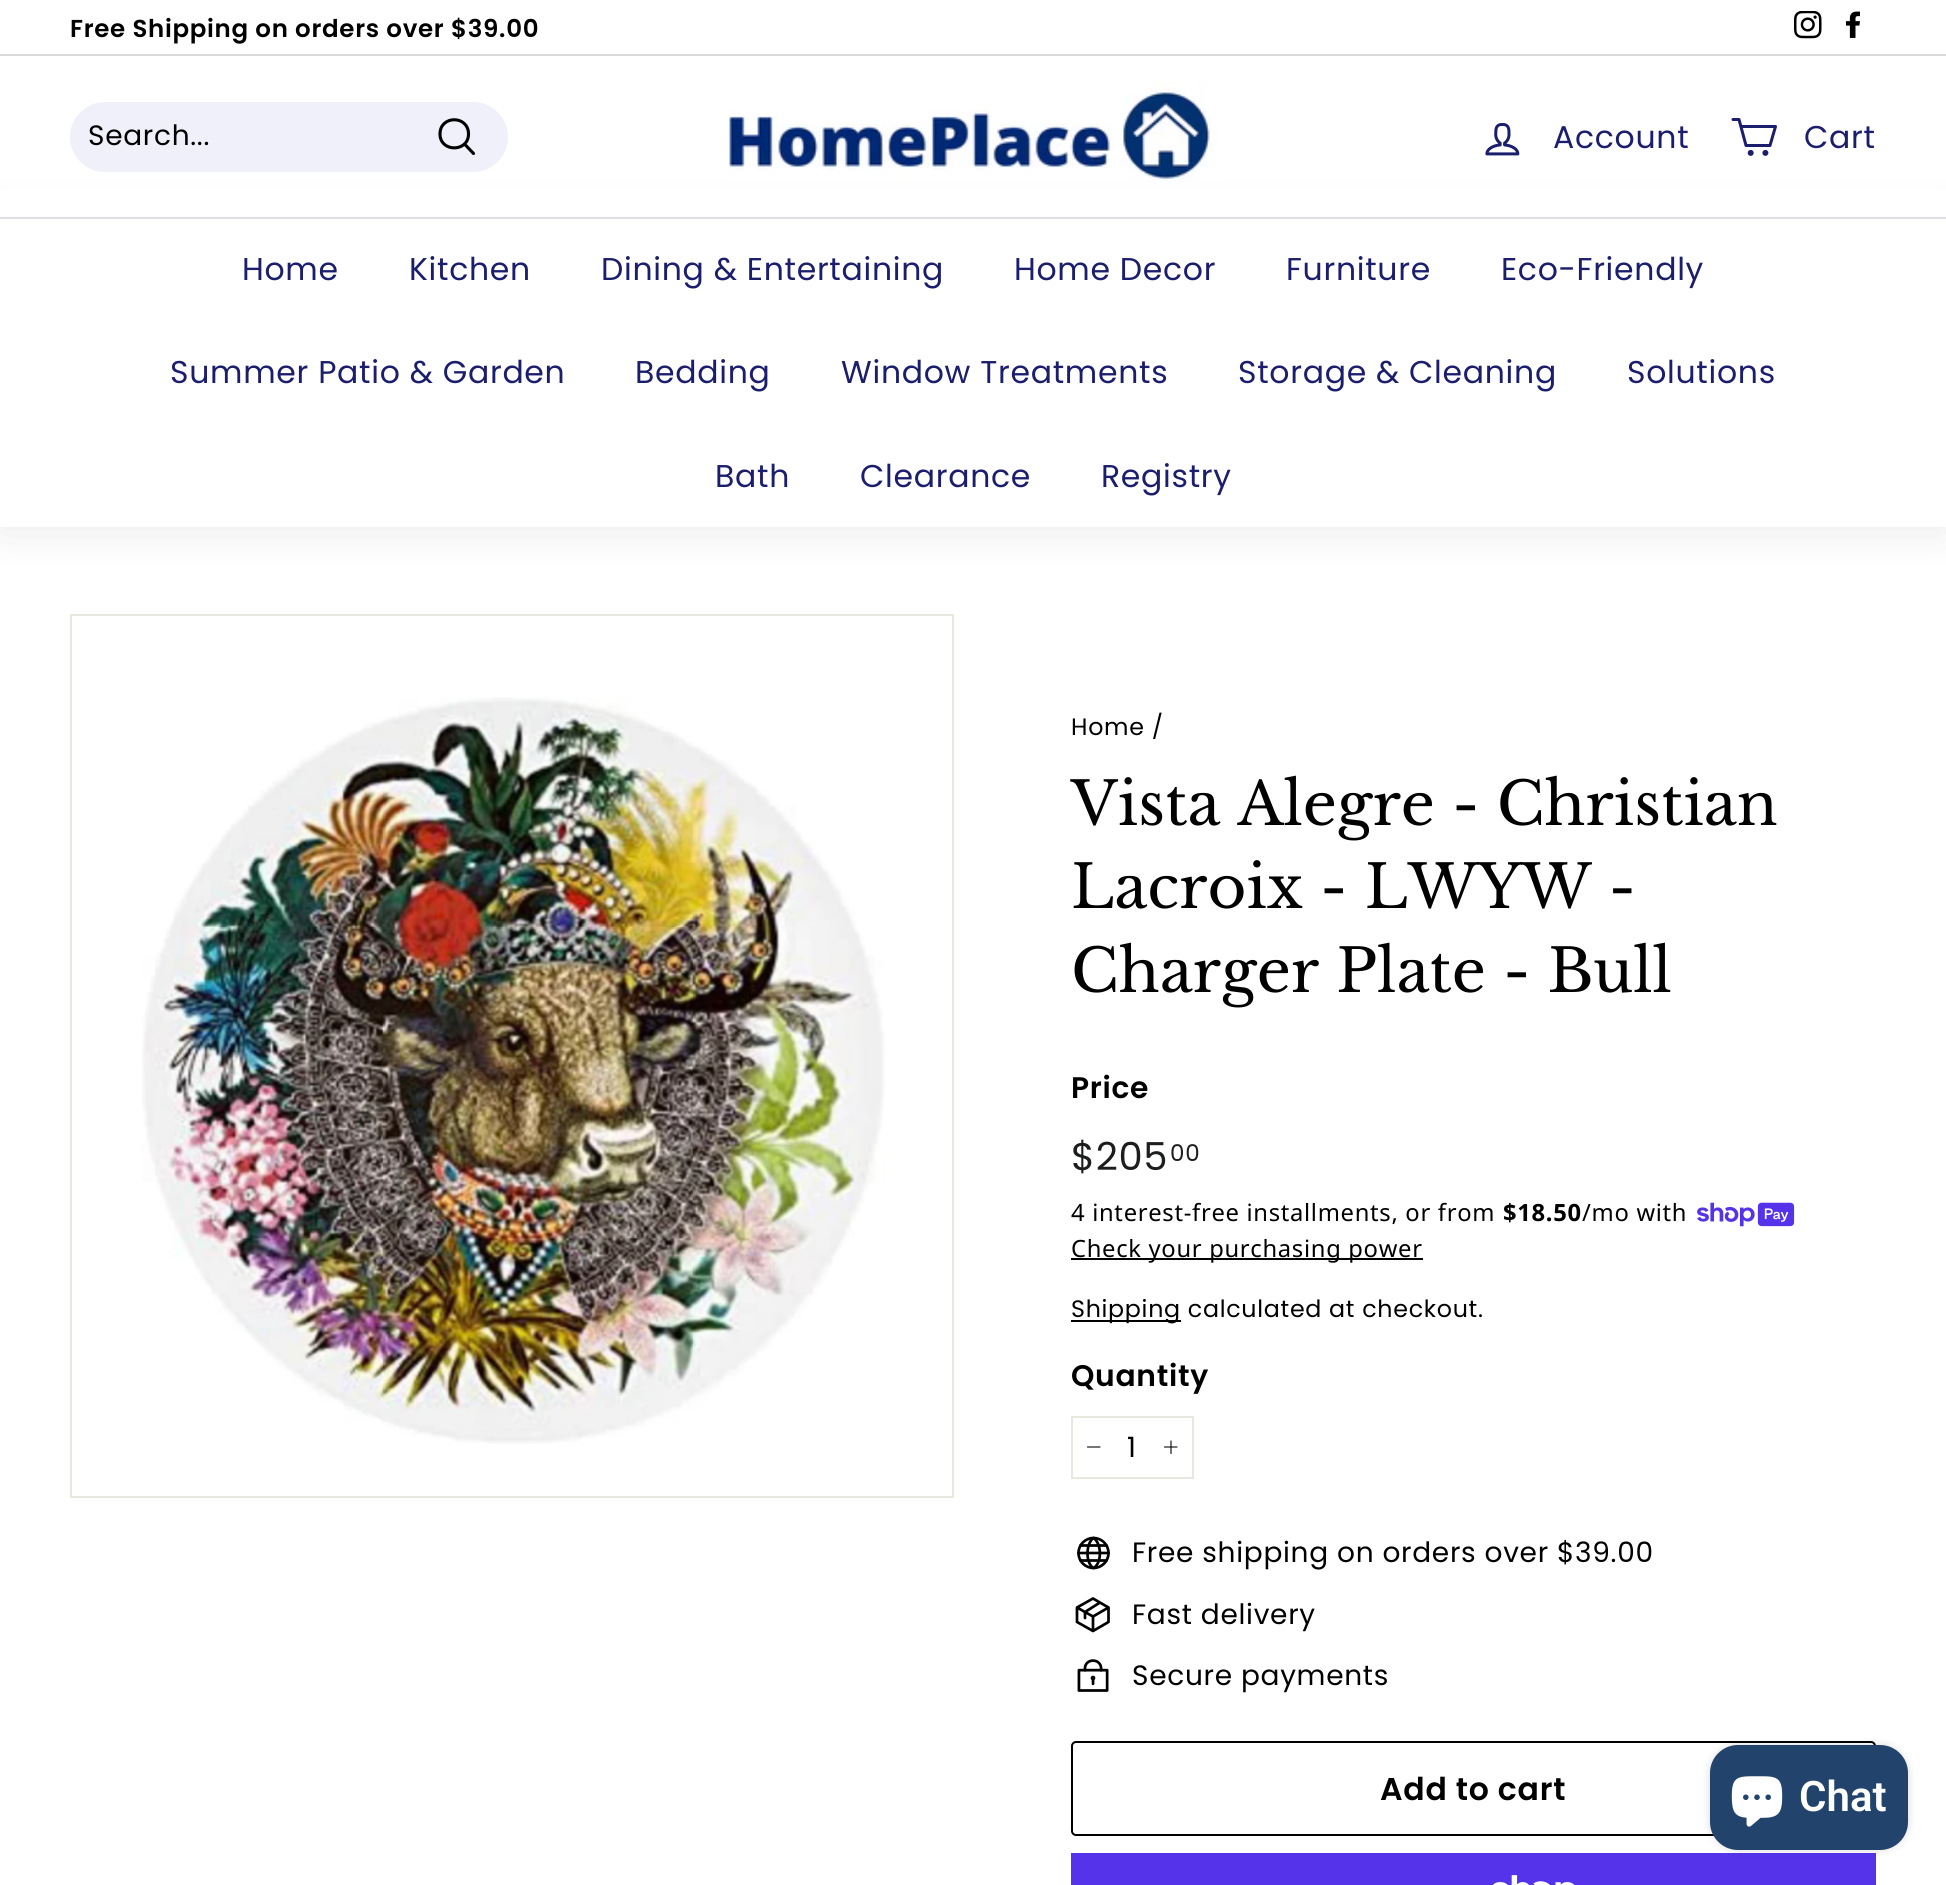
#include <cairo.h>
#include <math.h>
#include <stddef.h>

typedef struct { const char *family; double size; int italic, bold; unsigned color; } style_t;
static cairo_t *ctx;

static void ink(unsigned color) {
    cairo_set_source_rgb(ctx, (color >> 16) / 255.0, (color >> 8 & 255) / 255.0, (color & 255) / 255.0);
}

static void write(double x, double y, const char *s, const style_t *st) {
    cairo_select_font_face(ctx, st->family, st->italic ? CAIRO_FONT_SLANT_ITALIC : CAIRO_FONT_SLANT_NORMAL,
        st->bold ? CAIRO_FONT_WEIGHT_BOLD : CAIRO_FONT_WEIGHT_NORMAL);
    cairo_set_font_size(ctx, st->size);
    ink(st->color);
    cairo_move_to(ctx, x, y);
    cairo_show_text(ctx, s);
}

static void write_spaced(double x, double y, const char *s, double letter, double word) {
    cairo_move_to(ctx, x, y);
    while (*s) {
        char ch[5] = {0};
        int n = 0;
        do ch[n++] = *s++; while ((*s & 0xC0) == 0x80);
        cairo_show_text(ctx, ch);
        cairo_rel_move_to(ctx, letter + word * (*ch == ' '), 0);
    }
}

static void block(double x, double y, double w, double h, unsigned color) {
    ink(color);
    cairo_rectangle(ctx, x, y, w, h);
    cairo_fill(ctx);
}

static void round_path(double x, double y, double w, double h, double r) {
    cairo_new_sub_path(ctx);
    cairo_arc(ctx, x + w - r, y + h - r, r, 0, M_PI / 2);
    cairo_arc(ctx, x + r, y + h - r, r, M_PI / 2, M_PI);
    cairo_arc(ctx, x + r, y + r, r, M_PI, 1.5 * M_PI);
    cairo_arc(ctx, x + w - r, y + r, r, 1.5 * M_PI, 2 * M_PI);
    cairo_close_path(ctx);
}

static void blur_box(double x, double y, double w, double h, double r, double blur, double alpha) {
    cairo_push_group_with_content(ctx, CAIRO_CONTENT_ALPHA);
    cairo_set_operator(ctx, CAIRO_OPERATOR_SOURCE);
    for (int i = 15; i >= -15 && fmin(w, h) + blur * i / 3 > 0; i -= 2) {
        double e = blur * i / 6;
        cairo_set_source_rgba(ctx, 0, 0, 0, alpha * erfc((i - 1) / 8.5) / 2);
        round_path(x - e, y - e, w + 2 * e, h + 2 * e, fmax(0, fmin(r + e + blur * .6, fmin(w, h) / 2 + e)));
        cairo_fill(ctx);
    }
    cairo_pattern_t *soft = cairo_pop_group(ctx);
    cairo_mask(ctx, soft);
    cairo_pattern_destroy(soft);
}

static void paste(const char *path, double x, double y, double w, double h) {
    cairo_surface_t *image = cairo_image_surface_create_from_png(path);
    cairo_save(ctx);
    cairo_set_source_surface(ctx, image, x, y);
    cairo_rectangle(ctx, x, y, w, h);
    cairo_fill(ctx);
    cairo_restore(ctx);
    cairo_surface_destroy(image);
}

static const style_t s1 = {"Libre Baskerville", 59.5, 0, 0, 0x000000};
static const style_t s2 = {"Roboto SemiBold", 42, 0, 0, 0xffffff};

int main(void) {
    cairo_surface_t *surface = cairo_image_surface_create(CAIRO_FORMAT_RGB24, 1946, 1885);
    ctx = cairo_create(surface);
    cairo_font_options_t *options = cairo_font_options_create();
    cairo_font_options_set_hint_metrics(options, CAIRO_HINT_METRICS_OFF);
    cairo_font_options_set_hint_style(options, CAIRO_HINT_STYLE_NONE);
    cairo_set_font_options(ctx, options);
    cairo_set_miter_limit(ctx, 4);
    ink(0xffffff);
    cairo_paint(ctx);
    cairo_select_font_face(ctx, "Poppins SemiBold", CAIRO_FONT_SLANT_NORMAL, CAIRO_FONT_WEIGHT_NORMAL);
    cairo_set_font_size(ctx, 24.5);
    ink(0x000000);
    write_spaced(70, 37, "Free Shipping on orders over $39.00", 0.7, 0);
    paste("pic1.png", 1794, 11, 28, 28);
    paste("pic2.png", 1845, 11, 15, 27);
    block(0, 54, 1946, 2, 0xd9d9d9);
    ink(0x000000);
    blur_box(0, 217, 1946, 310, 0, 22, 0.1);
    block(0, 189, 1946, 28, 0xffffff);
    ink(0xeff0fa);
    round_path(70, 102, 438, 70, 35);
    cairo_fill(ctx);
    cairo_select_font_face(ctx, "Poppins", CAIRO_FONT_SLANT_NORMAL, CAIRO_FONT_WEIGHT_NORMAL);
    cairo_set_font_size(ctx, 28);
    ink(0x000000);
    write_spaced(88, 145, "Search...", 0.7, 0);
    cairo_new_path(ctx);
    cairo_move_to(ctx, 468.5, 134);
    cairo_curve_to(ctx, 468.5, 152.5, 440, 152.5, 440, 134);
    cairo_curve_to(ctx, 440, 115, 468.5, 115, 468.5, 134);
    cairo_close_path(ctx);
    cairo_move_to(ctx, 473.5, 153.5);
    cairo_line_to(ctx, 464.5, 144);
    cairo_set_line_width(ctx, 3.1);
    cairo_set_line_cap(ctx, CAIRO_LINE_CAP_ROUND);
    cairo_set_line_join(ctx, CAIRO_LINE_JOIN_ROUND);
    cairo_stroke(ctx);
    paste("pic3.png", 728, 82, 492, 99);
    paste("pic4.png", 1485, 122, 35, 34);
    cairo_set_font_size(ctx, 31.5);
    ink(0x1b1d6d);
    write_spaced(1553, 148, "Account", 0.7, 0);
    cairo_new_path(ctx);
    cairo_move_to(ctx, 1741, 126.5);
    cairo_line_to(ctx, 1775.5, 126.5);
    cairo_line_to(ctx, 1770, 145.5);
    cairo_line_to(ctx, 1746, 145.5);
    cairo_line_to(ctx, 1739, 119.5);
    cairo_line_to(ctx, 1733, 119.5);
    cairo_set_line_width(ctx, 3);
    cairo_stroke(ctx);
    cairo_arc(ctx, 1750.7, 152.9, 1.5, 0, 2 * M_PI);
    cairo_set_line_cap(ctx, CAIRO_LINE_CAP_BUTT);
    cairo_set_line_join(ctx, CAIRO_LINE_JOIN_MITER);
    cairo_stroke(ctx);
    cairo_arc(ctx, 1765.4, 152.9, 1.5, 0, 2 * M_PI);
    cairo_stroke(ctx);
    write_spaced(1804, 148, "Cart", 0.7, 0);
    block(0, 219, 1946, 308, 0xffffff);
    block(0, 217, 1946, 2, 0xdddde9);
    ink(0x1b1d6d);
    write_spaced(242, 280, "Home", 0.7, 0);
    write_spaced(409, 280, "Kitchen", 0.7, 0);
    write_spaced(601, 280, "Dining & Entertaining", 0.7, 0);
    write_spaced(1014, 280, "Home Decor", 0.7, 0);
    write_spaced(1286, 280, "Furniture", 0.7, 0);
    write_spaced(1501, 280, "Eco-Friendly", 0.7, 0);
    write_spaced(170, 383, "Summer Patio & Garden", 0.7, 0);
    write_spaced(635, 383, "Bedding", 0.7, 0);
    write_spaced(841, 383, "Window Treatments", 0.7, 0);
    write_spaced(1238, 383, "Storage & Cleaning", 0.7, 0);
    write_spaced(1627, 383, "Solutions", 0.7, 0);
    write_spaced(715, 487, "Bath", 0.7, 0);
    write_spaced(860, 487, "Clearance", 0.7, 0);
    write_spaced(1101, 487, "Registry", 0.7, 0);
    cairo_rectangle(ctx, 71, 615, 882, 882);
    ink(0xe8e8e1);
    cairo_set_line_width(ctx, 2);
    cairo_stroke(ctx);
    paste("pic5.png", 142, 697, 743, 747);
    cairo_set_font_size(ctx, 23.75);
    ink(0x000000);
    write_spaced(1071, 735, "Home /", 0.7, 0);
    write(1071, 825, "Vista Alegre - Christian", &s1);
    write(1071, 908, "Lacroix - LWYW -", &s1);
    write(1071, 992, "Charger Plate - Bull", &s1);
    cairo_select_font_face(ctx, "Poppins SemiBold", CAIRO_FONT_SLANT_NORMAL, CAIRO_FONT_WEIGHT_NORMAL);
    cairo_set_font_size(ctx, 29.75);
    write_spaced(1071, 1098, "Price", 0.7, 0);
    cairo_select_font_face(ctx, "Poppins", CAIRO_FONT_SLANT_NORMAL, CAIRO_FONT_WEIGHT_NORMAL);
    cairo_set_font_size(ctx, 38.5);
    ink(0x1c1d1d);
    write_spaced(1071, 1170, "$205", 0.7, 0);
    cairo_set_font_size(ctx, 23);
    write_spaced(1170, 1161, "00", 0.7, 0);
    cairo_select_font_face(ctx, "Noto Sans", CAIRO_FONT_SLANT_NORMAL, CAIRO_FONT_WEIGHT_NORMAL);
    cairo_set_font_size(ctx, 23.75);
    ink(0x000000);
    write_spaced(1071, 1221, "4 interest-free installments, or from", 0.7, 0);
    cairo_select_font_face(ctx, "Noto Sans", CAIRO_FONT_SLANT_NORMAL, CAIRO_FONT_WEIGHT_BOLD);
    write_spaced(1503, 1221, "$18.50", 0.7, 0);
    cairo_select_font_face(ctx, "Noto Sans", CAIRO_FONT_SLANT_NORMAL, CAIRO_FONT_WEIGHT_NORMAL);
    write_spaced(1582, 1221, "/mo with", 0.7, 0);
    paste("pic6.png", 1697, 1202, 98, 25);
    block(1071, 1258, 352, 2, 0x000000);
    write_spaced(1071, 1257, "Check your purchasing power", 0.7, 0);
    block(1071, 1320, 110, 2, 0x000000);
    cairo_select_font_face(ctx, "Poppins", CAIRO_FONT_SLANT_NORMAL, CAIRO_FONT_WEIGHT_NORMAL);
    write_spaced(1071, 1317, "Shipping calculated at checkout.", 0.7, 0);
    cairo_select_font_face(ctx, "Poppins SemiBold", CAIRO_FONT_SLANT_NORMAL, CAIRO_FONT_WEIGHT_NORMAL);
    cairo_set_font_size(ctx, 29.75);
    write_spaced(1071, 1386, "Quantity", 0.7, 0);
    cairo_rectangle(ctx, 1072, 1417, 121, 61);
    ink(0xe8e8e1);
    cairo_stroke(ctx);
    cairo_new_path(ctx);
    cairo_move_to(ctx, 1100, 1447);
    cairo_line_to(ctx, 1087.5, 1447);
    ink(0x000000);
    cairo_set_line_width(ctx, 1.1);
    cairo_set_line_cap(ctx, CAIRO_LINE_CAP_ROUND);
    cairo_set_line_join(ctx, CAIRO_LINE_JOIN_ROUND);
    cairo_stroke(ctx);
    cairo_select_font_face(ctx, "Poppins", CAIRO_FONT_SLANT_NORMAL, CAIRO_FONT_WEIGHT_NORMAL);
    cairo_set_font_size(ctx, 28);
    write_spaced(1127, 1457, "1", 0.7, 0);
    cairo_new_path(ctx);
    cairo_move_to(ctx, 1171, 1441);
    cairo_line_to(ctx, 1171, 1453.5);
    cairo_move_to(ctx, 1177, 1447);
    cairo_line_to(ctx, 1164.5, 1447);
    cairo_stroke(ctx);
    cairo_arc(ctx, 1093.5, 1553, 15, 0, 2 * M_PI);
    cairo_set_line_width(ctx, 2.7);
    cairo_set_line_cap(ctx, CAIRO_LINE_CAP_BUTT);
    cairo_set_line_join(ctx, CAIRO_LINE_JOIN_MITER);
    cairo_stroke(ctx);
    cairo_new_path(ctx);
    cairo_move_to(ctx, 1080.5, 1545.5);
    cairo_line_to(ctx, 1106.5, 1545.5);
    cairo_move_to(ctx, 1078.5, 1553);
    cairo_line_to(ctx, 1108.5, 1553);
    cairo_move_to(ctx, 1080.5, 1560.5);
    cairo_line_to(ctx, 1106.5, 1560.5);
    cairo_move_to(ctx, 1093.5, 1538);
    cairo_curve_to(ctx, 1085.5, 1543.5, 1085.5, 1563.5, 1093.5, 1568);
    cairo_move_to(ctx, 1093.5, 1538);
    cairo_curve_to(ctx, 1102, 1543.5, 1102, 1563.5, 1093.5, 1568);
    cairo_set_line_cap(ctx, CAIRO_LINE_CAP_ROUND);
    cairo_set_line_join(ctx, CAIRO_LINE_JOIN_ROUND);
    cairo_stroke(ctx);
    write_spaced(1132, 1562, "Free shipping on orders over $39.00", 0.7, 0);
    cairo_new_path(ctx);
    cairo_move_to(ctx, 1093, 1631);
    cairo_line_to(ctx, 1077, 1622);
    cairo_line_to(ctx, 1077, 1607.5);
    cairo_line_to(ctx, 1093, 1598.5);
    cairo_line_to(ctx, 1108.5, 1607.5);
    cairo_line_to(ctx, 1108.5, 1622);
    cairo_close_path(ctx);
    cairo_move_to(ctx, 1093, 1631);
    cairo_line_to(ctx, 1093, 1616.5);
    cairo_line_to(ctx, 1108.5, 1607.5);
    cairo_move_to(ctx, 1093, 1616.5);
    cairo_line_to(ctx, 1077, 1607.5);
    cairo_move_to(ctx, 1100, 1602.5);
    cairo_line_to(ctx, 1085, 1612);
    cairo_line_to(ctx, 1085, 1618);
    cairo_stroke(ctx);
    write_spaced(1132, 1624, "Fast delivery", 0.7, 0);
    paste("pic7.png", 1077, 1659, 32, 33);
    write_spaced(1132, 1685, "Secure payments", 0.7, 0);
    round_path(1072, 1742, 803, 93, 4);
    cairo_set_line_width(ctx, 2);
    cairo_set_line_cap(ctx, CAIRO_LINE_CAP_BUTT);
    cairo_set_line_join(ctx, CAIRO_LINE_JOIN_MITER);
    cairo_stroke(ctx);
    cairo_select_font_face(ctx, "Poppins SemiBold", CAIRO_FONT_SLANT_NORMAL, CAIRO_FONT_WEIGHT_NORMAL);
    cairo_set_font_size(ctx, 31.5);
    write_spaced(1380, 1800, "Add to cart", 0.75, 0);
    block(1071, 1853, 805, 32, 0x5433eb);
    paste("pic8.png", 1493, 1875, 82, 10);
    ink(0x000000);
    blur_box(1710, 1745, 198, 105, 28, 4.5, 0.15);
    ink(0x22446c);
    round_path(1710, 1745, 198, 105, 28);
    cairo_fill(ctx);
    paste("pic9.png", 1731, 1776, 52, 51);
    write(1799, 1811, "Chat", &s2);
    cairo_surface_write_to_png(surface, "screenshot.png");
    cairo_font_options_destroy(options);
    cairo_destroy(ctx);
    cairo_surface_destroy(surface);
    return 0;
}
